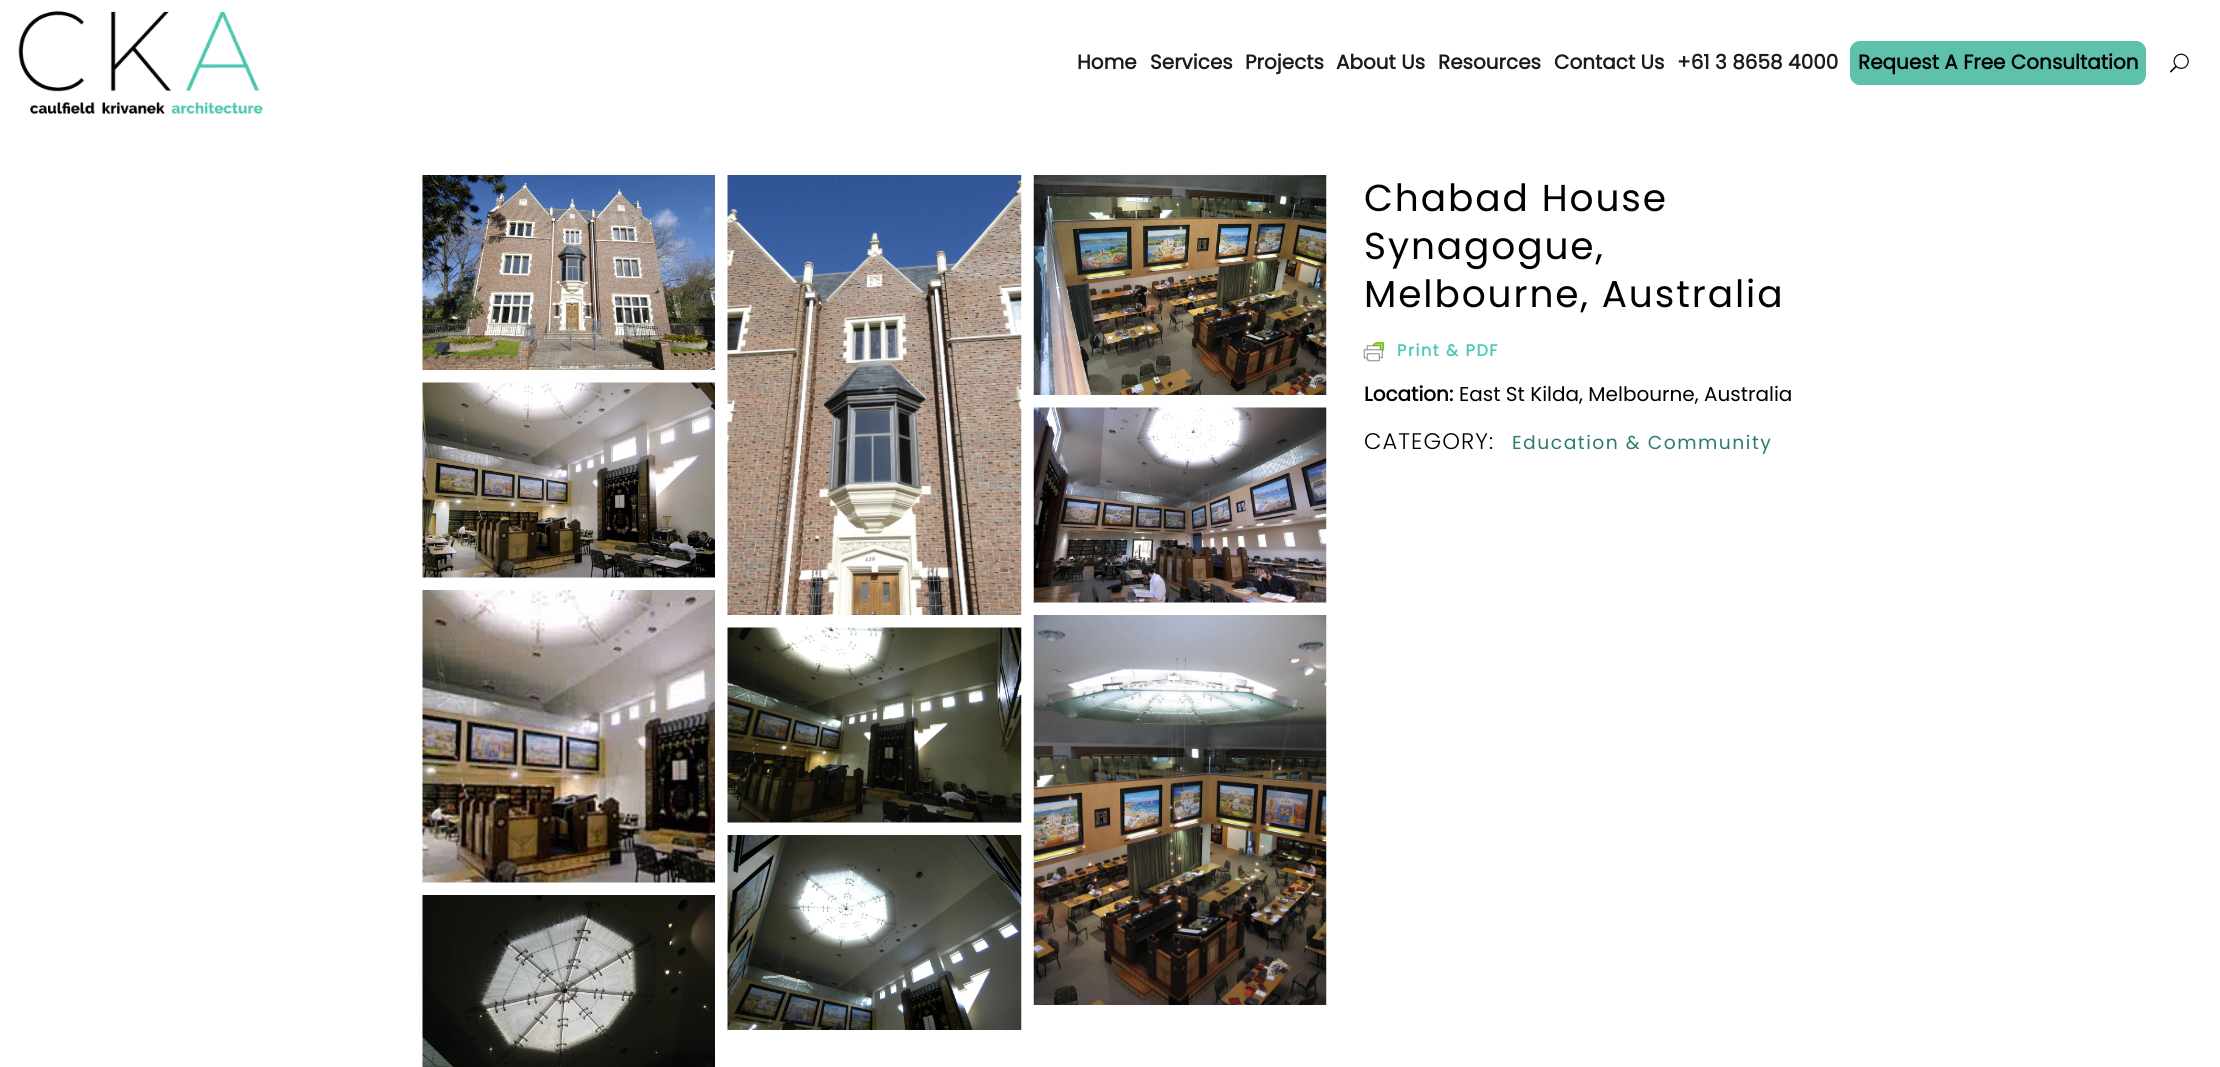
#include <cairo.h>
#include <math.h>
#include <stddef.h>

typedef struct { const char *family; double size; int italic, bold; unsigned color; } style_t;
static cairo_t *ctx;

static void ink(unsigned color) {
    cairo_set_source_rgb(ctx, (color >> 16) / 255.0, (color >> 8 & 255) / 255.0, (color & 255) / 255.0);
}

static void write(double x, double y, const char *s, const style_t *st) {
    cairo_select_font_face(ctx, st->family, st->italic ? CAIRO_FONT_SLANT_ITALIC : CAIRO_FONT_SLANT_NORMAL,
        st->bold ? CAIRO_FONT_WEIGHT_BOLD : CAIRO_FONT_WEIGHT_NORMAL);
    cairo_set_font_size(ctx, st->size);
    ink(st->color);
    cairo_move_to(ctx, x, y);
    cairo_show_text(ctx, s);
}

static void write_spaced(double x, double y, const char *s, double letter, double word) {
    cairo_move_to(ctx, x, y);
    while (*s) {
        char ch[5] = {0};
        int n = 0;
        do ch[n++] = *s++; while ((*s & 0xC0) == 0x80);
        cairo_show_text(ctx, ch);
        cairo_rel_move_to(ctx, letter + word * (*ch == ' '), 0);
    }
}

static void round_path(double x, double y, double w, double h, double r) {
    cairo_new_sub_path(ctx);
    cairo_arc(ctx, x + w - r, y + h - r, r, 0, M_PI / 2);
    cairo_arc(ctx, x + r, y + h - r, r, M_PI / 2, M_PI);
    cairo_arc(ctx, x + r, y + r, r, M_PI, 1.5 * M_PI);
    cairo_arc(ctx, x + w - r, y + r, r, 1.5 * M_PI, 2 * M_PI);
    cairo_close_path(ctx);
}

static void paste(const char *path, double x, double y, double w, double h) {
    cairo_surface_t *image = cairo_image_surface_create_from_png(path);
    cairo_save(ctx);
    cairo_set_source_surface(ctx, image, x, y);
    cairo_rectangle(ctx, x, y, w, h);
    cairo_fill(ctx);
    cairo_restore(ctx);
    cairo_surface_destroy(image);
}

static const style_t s1 = {"Poppins", 20, 0, 1, 0x1b1b1b};
static const style_t s2 = {"Poppins", 20, 0, 1, 0x000000};
static const style_t s3 = {"Poppins", 20, 0, 0, 0x000000};

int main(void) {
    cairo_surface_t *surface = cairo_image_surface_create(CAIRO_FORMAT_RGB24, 2220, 1067);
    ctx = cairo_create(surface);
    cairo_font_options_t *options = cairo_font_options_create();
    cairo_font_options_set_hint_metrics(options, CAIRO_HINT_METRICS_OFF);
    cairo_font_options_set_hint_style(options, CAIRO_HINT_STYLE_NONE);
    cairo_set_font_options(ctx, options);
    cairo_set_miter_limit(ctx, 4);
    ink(0xffffff);
    cairo_paint(ctx);
    paste("pic1.png", 18, 11, 245, 103);
    write(1077, 69, "Home", &s1);
    write(1150, 69, "Services", &s1);
    write(1245, 69, "Projects", &s1);
    write(1336, 69, "About Us", &s1);
    write(1438, 69, "Resources", &s1);
    write(1554, 69, "Contact Us", &s1);
    write(1677, 69, "+61 3 8658 4000", &s1);
    ink(0x5dc1ab);
    round_path(1850.5, 41.5, 295, 43, 9.5);
    cairo_fill_preserve(ctx);
    cairo_set_line_width(ctx, 1);
    cairo_stroke(ctx);
    write(1858, 69, "Request A Free Consultation", &s2);
    paste("pic2.png", 2170, 53, 19, 20);
    paste("pic3.png", 422, 175, 293, 195);
    paste("pic4.png", 727, 175, 295, 440);
    paste("pic5.png", 1033, 175, 294, 220);
    paste("pic6.png", 422, 382, 293, 196);
    paste("pic7.png", 1033, 407, 294, 196);
    paste("pic8.png", 422, 590, 293, 293);
    paste("pic9.png", 727, 627, 295, 196);
    paste("pic10.png", 1033, 615, 294, 390);
    paste("pic11.png", 422, 895, 293, 172);
    paste("pic12.png", 727, 835, 295, 195);
    cairo_select_font_face(ctx, "Poppins", CAIRO_FONT_SLANT_NORMAL, CAIRO_FONT_WEIGHT_NORMAL);
    cairo_set_font_size(ctx, 37.5);
    write_spaced(1364, 211, "Chabad House", 1.9, 0);
    write_spaced(1364, 259, "Synagogue,", 1.9, 0);
    write_spaced(1364, 307, "Melbourne, Australia", 1.9, 0);
    paste("pic13.png", 1363, 342, 21, 20);
    cairo_select_font_face(ctx, "Poppins", CAIRO_FONT_SLANT_NORMAL, CAIRO_FONT_WEIGHT_BOLD);
    cairo_set_font_size(ctx, 16.25);
    ink(0x4bc8b6);
    write_spaced(1397, 356, "Print & PDF", 1.5, 0);
    write(1364, 401, "Location:", &s2);
    write(1459, 401, "East St Kilda, Melbourne, Australia", &s3);
    cairo_select_font_face(ctx, "Poppins Light", CAIRO_FONT_SLANT_NORMAL, CAIRO_FONT_WEIGHT_NORMAL);
    cairo_set_font_size(ctx, 22.5);
    write_spaced(1364, 449, "CATEGORY:", 1.1, 0);
    cairo_select_font_face(ctx, "Poppins", CAIRO_FONT_SLANT_NORMAL, CAIRO_FONT_WEIGHT_NORMAL);
    cairo_set_font_size(ctx, 18.75);
    ink(0x2b7c70);
    write_spaced(1512, 449, "Education & Community", 1.5, 0);
    cairo_surface_write_to_png(surface, "screenshot.png");
    cairo_font_options_destroy(options);
    cairo_destroy(ctx);
    cairo_surface_destroy(surface);
    return 0;
}
